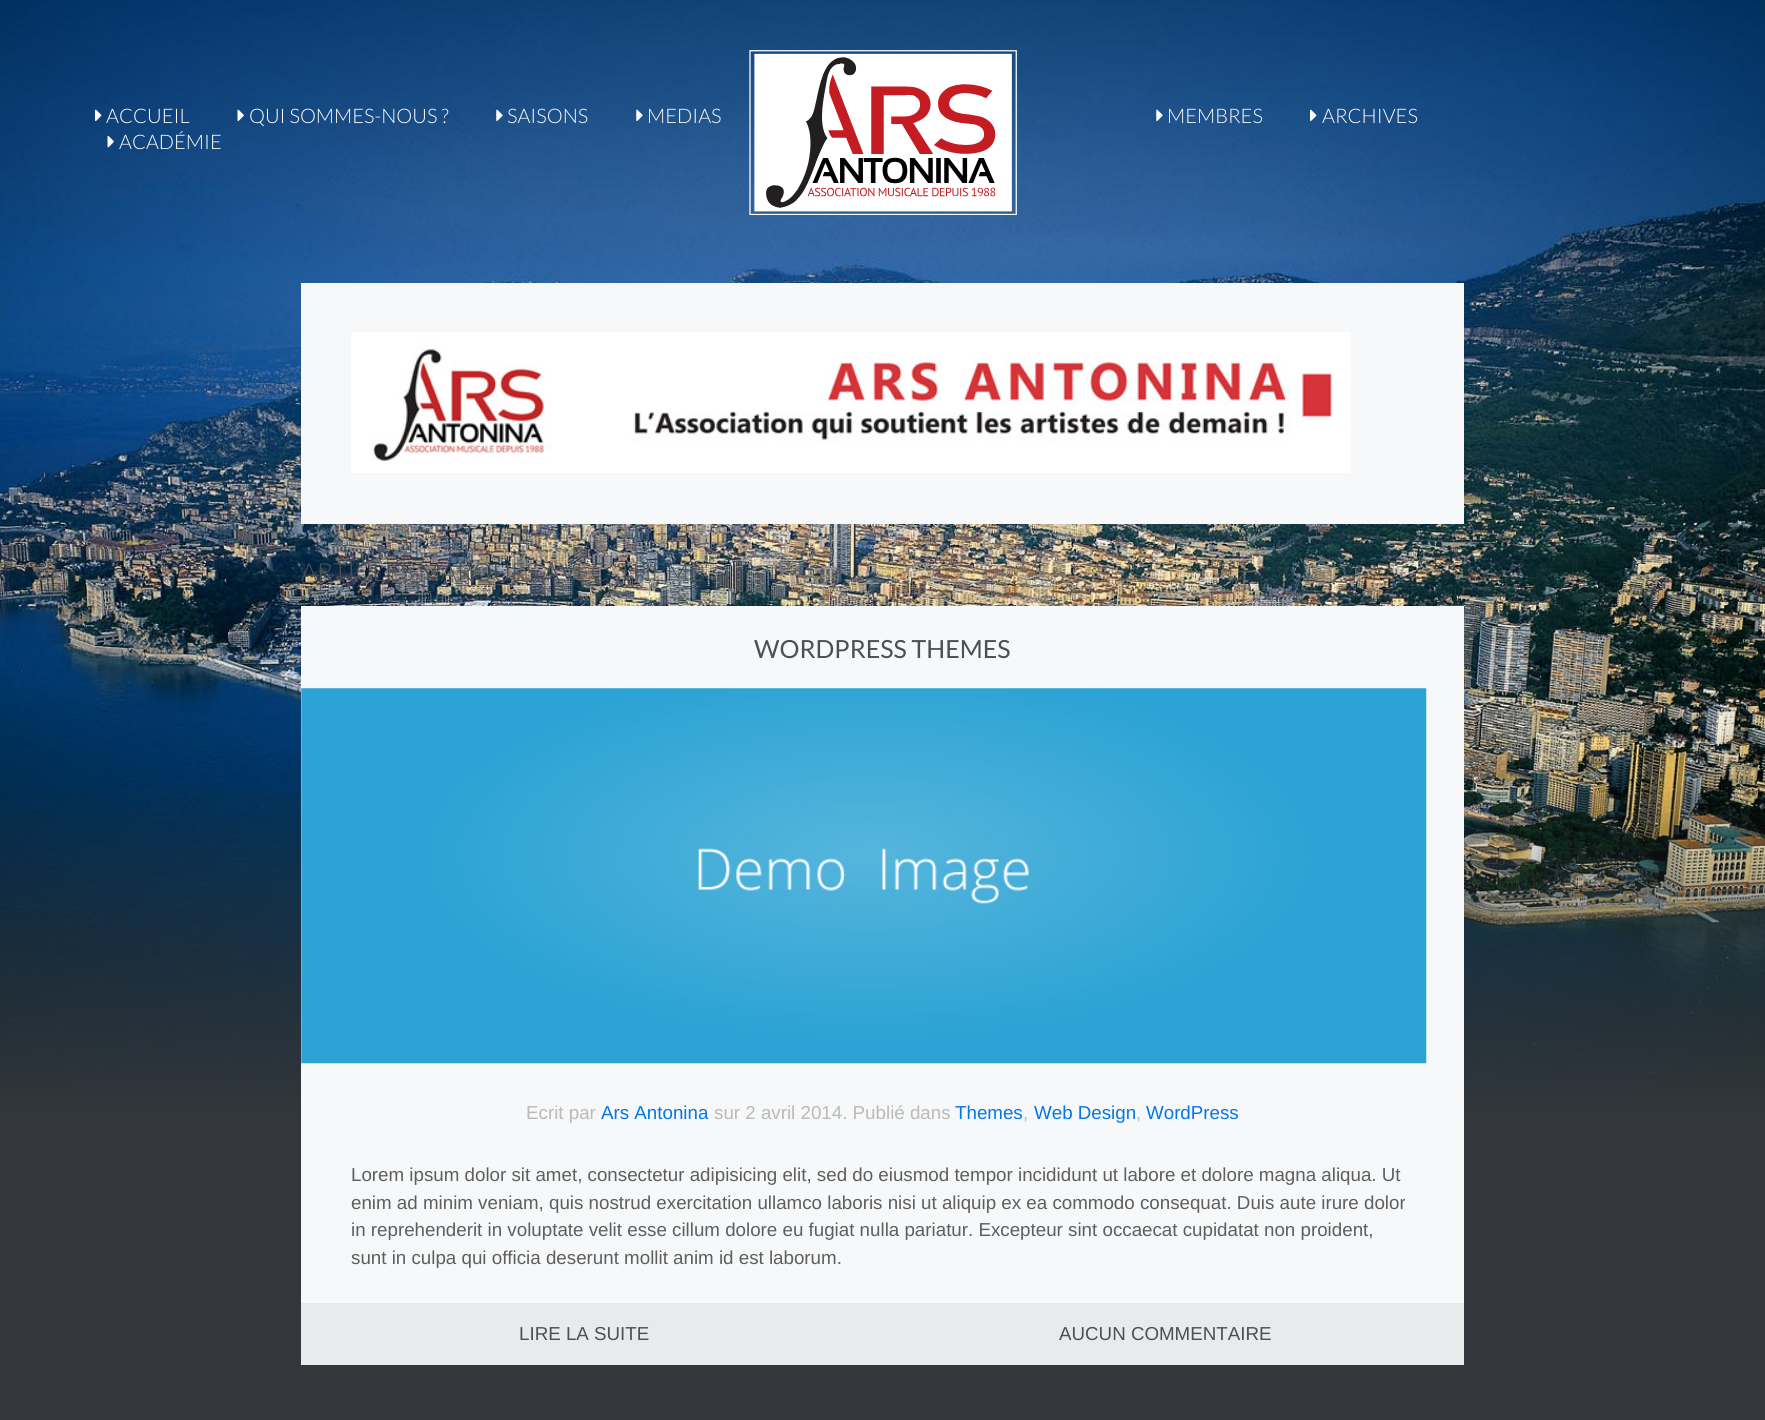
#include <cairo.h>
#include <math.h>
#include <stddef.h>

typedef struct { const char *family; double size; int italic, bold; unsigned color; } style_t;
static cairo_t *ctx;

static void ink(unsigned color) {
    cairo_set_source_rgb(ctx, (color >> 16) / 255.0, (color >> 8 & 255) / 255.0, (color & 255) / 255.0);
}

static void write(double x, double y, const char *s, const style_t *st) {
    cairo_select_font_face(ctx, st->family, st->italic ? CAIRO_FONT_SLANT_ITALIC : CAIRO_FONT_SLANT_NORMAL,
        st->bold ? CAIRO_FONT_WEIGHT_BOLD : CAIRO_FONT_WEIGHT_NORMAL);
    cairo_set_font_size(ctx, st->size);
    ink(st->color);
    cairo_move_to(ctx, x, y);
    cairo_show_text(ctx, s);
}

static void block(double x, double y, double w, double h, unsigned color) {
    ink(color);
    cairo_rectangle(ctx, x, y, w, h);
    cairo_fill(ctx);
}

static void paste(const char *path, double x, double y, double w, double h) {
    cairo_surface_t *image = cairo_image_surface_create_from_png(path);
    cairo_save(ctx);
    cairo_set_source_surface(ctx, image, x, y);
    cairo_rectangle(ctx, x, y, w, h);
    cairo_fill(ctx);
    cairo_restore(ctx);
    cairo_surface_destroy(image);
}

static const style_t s1 = {"Lato Light", 20, 0, 0, 0xfdfdfd};
static const style_t s2 = {"Lato Light", 25, 0, 0, 0x4b5052};
static const style_t s3 = {"Lato", 25, 0, 0, 0x4b5052};
static const style_t s4 = {"Liberation Sans", 18.75, 0, 0, 0xbabab7};
static const style_t s5 = {"Liberation Sans", 18.75, 0, 0, 0x0476e6};
static const style_t s6 = {"Liberation Sans", 18.75, 0, 0, 0x5e5e5e};
static const style_t s7 = {"Liberation Sans", 18.75, 0, 0, 0x4b5052};

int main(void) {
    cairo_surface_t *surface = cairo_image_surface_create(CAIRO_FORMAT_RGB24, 1765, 1420);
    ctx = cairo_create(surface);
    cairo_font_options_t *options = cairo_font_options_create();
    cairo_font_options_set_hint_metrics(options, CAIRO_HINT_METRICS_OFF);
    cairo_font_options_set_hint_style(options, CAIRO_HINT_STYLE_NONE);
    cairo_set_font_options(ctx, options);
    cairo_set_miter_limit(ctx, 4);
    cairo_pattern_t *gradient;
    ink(0x33373b);
    cairo_paint(ctx);
    paste("pic1.png", 0, 0, 1765, 1119);
    gradient = cairo_pattern_create_linear(883, -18, 883, 1121);
    cairo_pattern_add_color_stop_rgba(gradient, 0, 0, 0, 0, 0);
    cairo_pattern_add_color_stop_rgba(gradient, 0.7, 0.2, 0.216, 0.231, 0);
    cairo_pattern_add_color_stop_rgba(gradient, 1, 0.2, 0.216, 0.231, 1);
    cairo_set_source(ctx, gradient);
    cairo_pattern_destroy(gradient);
    cairo_rectangle(ctx, 0, 787, 1765, 332);
    cairo_fill(ctx);
    paste("pic2.png", 749, 50, 268, 165);
    paste("pic3.png", 95, 109, 7, 12);
    write(106, 123, "ACCUEIL", &s1);
    paste("pic4.png", 237, 109, 7, 12);
    write(249, 123, "QUI SOMMES-NOUS ?", &s1);
    paste("pic5.png", 496, 109, 7, 12);
    write(507, 123, "SAISONS", &s1);
    paste("pic6.png", 636, 109, 7, 12);
    write(647, 123, "MEDIAS", &s1);
    paste("pic7.png", 1156, 109, 7, 12);
    write(1167, 123, "MEMBRES", &s1);
    paste("pic8.png", 1310, 109, 7, 12);
    write(1322, 123, "ARCHIVES", &s1);
    paste("pic9.png", 107, 135, 7, 13);
    write(119, 149, "ACADÉMIE", &s1);
    block(301, 283, 1163, 241, 0xf6f8f9);
    paste("pic10.png", 351, 332, 1000, 141);
    write(301, 581, "ARTICLES MARQUÉS AVEC ‘THEME’", &s2);
    block(301, 606, 1163, 697, 0xf6f8f9);
    write(754, 658, "WORDPRESS THEMES", &s3);
    paste("pic11.png", 301, 688, 1126, 376);
    write(526, 1119, "Ecrit par", &s4);
    write(601, 1119, "Ars Antonina", &s5);
    write(714, 1119, "sur 2 avril 2014. Publié dans", &s4);
    write(955, 1119, "Themes", &s5);
    write(1023, 1119, ",", &s4);
    write(1034, 1119, "Web Design", &s5);
    write(1136, 1119, ",", &s4);
    write(1146, 1119, "WordPress", &s5);
    write(351, 1181, "Lorem ipsum dolor sit amet, consectetur adipisicing elit, sed do eiusmod tempor incididunt ut labore et dolore magna aliqua. Ut", &s6);
    write(351, 1209, "enim ad minim veniam, quis nostrud exercitation ullamco laboris nisi ut aliquip ex ea commodo consequat. Duis aute irure dolor", &s6);
    write(351, 1236, "in reprehenderit in voluptate velit esse cillum dolore eu fugiat nulla pariatur. Excepteur sint occaecat cupidatat non proident,", &s6);
    write(351, 1264, "sunt in culpa qui officia deserunt mollit anim id est laborum.", &s6);
    block(301, 1303, 1163, 62, 0xe7ebec);
    write(519, 1340, "LIRE LA SUITE", &s7);
    write(1059, 1340, "AUCUN COMMENTAIRE", &s7);
    cairo_surface_write_to_png(surface, "screenshot.png");
    cairo_font_options_destroy(options);
    cairo_destroy(ctx);
    cairo_surface_destroy(surface);
    return 0;
}
